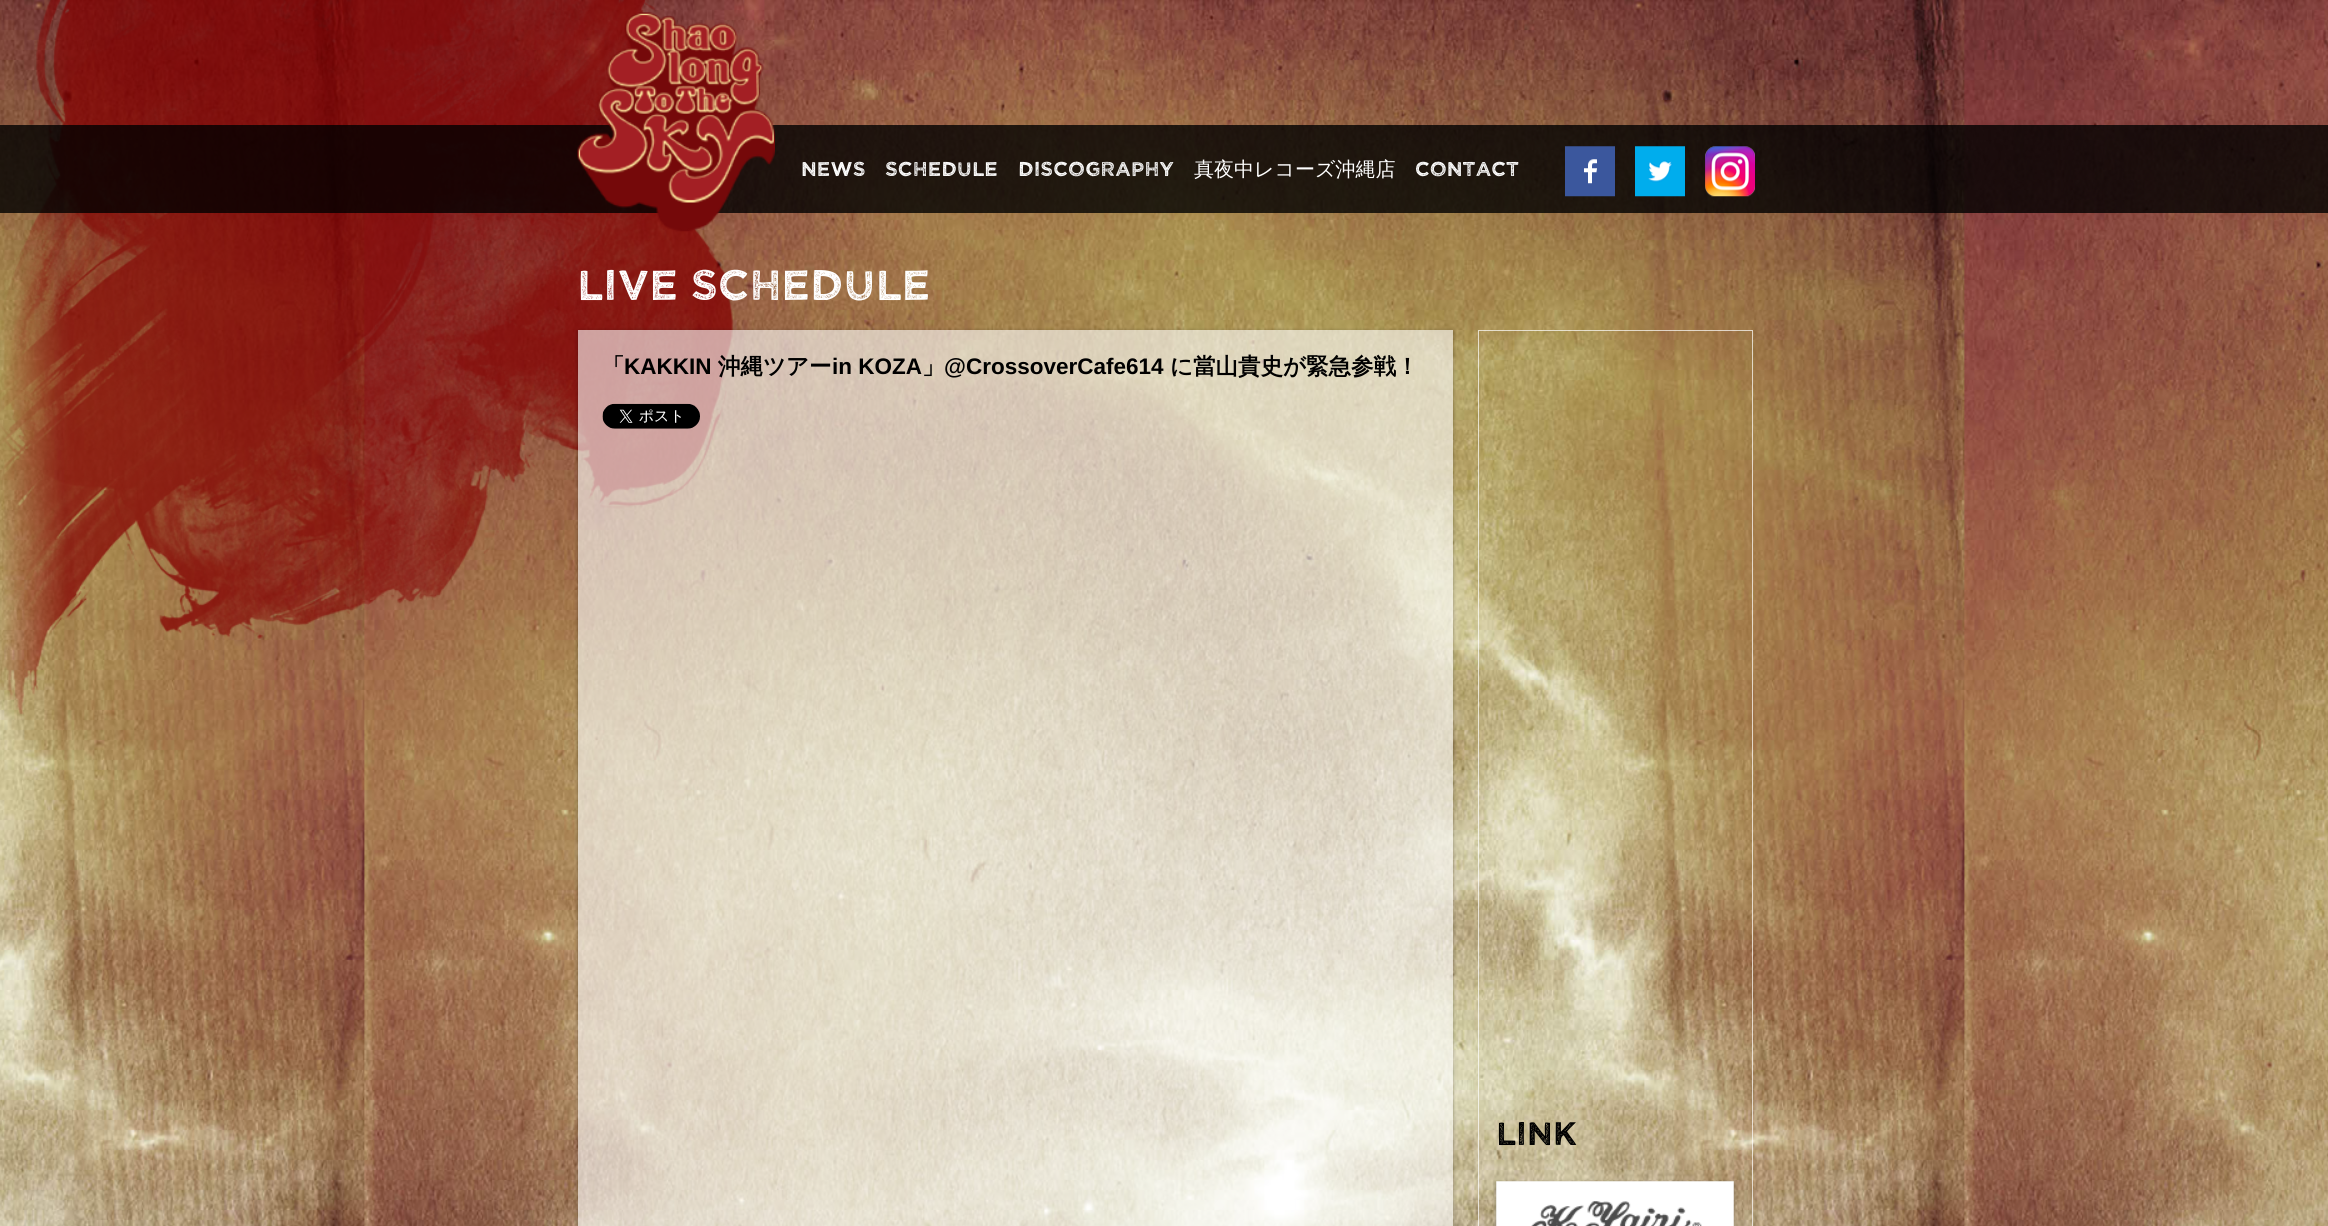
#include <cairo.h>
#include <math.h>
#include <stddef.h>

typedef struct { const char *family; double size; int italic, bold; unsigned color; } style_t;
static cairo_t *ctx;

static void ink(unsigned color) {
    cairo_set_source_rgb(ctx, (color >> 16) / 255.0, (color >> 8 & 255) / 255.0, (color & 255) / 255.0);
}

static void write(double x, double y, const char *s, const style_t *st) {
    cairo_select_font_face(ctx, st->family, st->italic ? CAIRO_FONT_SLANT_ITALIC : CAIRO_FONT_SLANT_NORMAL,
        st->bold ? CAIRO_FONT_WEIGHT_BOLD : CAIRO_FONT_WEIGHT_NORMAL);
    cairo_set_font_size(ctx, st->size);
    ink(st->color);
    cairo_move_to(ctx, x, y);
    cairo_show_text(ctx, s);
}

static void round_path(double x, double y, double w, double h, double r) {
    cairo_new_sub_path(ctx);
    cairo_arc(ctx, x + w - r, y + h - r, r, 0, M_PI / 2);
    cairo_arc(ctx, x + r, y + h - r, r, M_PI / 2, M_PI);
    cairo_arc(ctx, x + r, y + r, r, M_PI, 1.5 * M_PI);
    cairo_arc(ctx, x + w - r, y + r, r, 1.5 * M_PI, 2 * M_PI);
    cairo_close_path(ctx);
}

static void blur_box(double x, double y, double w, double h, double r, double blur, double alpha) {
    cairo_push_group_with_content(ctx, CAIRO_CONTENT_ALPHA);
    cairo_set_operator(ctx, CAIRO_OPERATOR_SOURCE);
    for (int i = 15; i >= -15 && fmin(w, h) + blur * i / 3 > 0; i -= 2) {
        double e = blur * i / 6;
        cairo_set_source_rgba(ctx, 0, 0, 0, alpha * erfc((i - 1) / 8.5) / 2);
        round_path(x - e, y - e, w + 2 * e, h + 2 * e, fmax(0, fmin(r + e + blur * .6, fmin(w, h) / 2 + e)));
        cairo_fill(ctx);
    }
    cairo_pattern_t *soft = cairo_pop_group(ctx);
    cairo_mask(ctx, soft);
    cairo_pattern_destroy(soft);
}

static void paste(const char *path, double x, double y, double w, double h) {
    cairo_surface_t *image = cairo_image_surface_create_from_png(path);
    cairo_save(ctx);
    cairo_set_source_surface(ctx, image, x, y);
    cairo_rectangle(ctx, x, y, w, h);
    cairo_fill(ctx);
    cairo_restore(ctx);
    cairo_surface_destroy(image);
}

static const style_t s1 = {"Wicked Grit", 20, 0, 1, 0xffffff};
static const style_t s2 = {"WenQuanYi Zen Hei Medium", 20, 0, 0, 0xffffff};
static const style_t s3 = {"Wicked Grit", 42.5, 0, 1, 0xffffff};
static const style_t s4 = {"WenQuanYi Zen Hei", 22.5, 0, 1, 0x000000};
static const style_t s5 = {"Liberation Sans", 22.5, 0, 1, 0x000000};
static const style_t s6 = {"Wicked Grit", 32.5, 0, 1, 0x000000};

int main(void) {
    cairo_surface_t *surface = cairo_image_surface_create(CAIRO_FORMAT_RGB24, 2328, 1226);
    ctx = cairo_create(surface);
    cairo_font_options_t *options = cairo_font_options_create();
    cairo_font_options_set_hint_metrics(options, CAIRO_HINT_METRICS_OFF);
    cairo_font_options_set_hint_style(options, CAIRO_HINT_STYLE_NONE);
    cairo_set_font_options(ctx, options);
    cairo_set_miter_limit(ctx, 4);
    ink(0xffffff);
    cairo_paint(ctx);
    paste("pic1.png", 0, 0, 2328, 1226);
    paste("pic2.png", 0, 0, 744, 715);
    cairo_set_source_rgba(ctx, 0, 0, 0, 0.8);
    cairo_rectangle(ctx, 0, 125, 2328, 88);
    cairo_fill(ctx);
    paste("pic3.png", 577, 12, 198, 220);
    write(801, 176, "NEWS", &s1);
    write(885, 176, "SCHEDULE", &s1);
    write(1018, 176, "DISCOGRAPHY", &s1);
    write(1194, 176, "真夜中レコーズ沖縄店", &s2);
    write(1415, 176, "CONTACT", &s1);
    paste("pic4.png", 1565, 146, 50, 51);
    paste("pic5.png", 1635, 146, 50, 51);
    paste("pic6.png", 1705, 146, 50, 51);
    write(577, 300, "LIVE SCHEDULE", &s3);
    cairo_save(ctx);
    cairo_set_fill_rule(ctx, CAIRO_FILL_RULE_EVEN_ODD);
    cairo_new_path(ctx);
    cairo_move_to(ctx, 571, 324);
    cairo_line_to(ctx, 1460, 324);
    cairo_line_to(ctx, 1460, 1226);
    cairo_line_to(ctx, 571, 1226);
    cairo_close_path(ctx);
    cairo_move_to(ctx, 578, 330);
    cairo_line_to(ctx, 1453, 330);
    cairo_line_to(ctx, 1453, 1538);
    cairo_line_to(ctx, 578, 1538);
    cairo_close_path(ctx);
    cairo_clip(ctx);
    ink(0x000000);
    blur_box(578, 331, 875, 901, 0, 2, 0.3);
    cairo_restore(ctx);
    cairo_set_source_rgba(ctx, 1, 1, 1, 0.6);
    cairo_rectangle(ctx, 578, 330, 875, 896);
    cairo_fill(ctx);
    write(602, 374, "「", &s4);
    write(624, 374, "KAKKIN", &s5);
    write(718, 374, "沖縄ツアー", &s4);
    write(832, 374, "in KOZA", &s5);
    write(922, 374, "」", &s4);
    write(944, 374, "@CrossoverCafe614", &s5);
    write(1170, 374, "に當山貴史が緊急参戦！", &s4);
    paste("pic7.png", 602, 403, 98, 26);
    cairo_rectangle(ctx, 1478.5, 330.5, 274, 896);
    cairo_set_source_rgba(ctx, 1, 1, 1, 0.7);
    cairo_set_line_width(ctx, 1);
    cairo_stroke(ctx);
    write(1496, 1145, "LINK", &s6);
    ink(0x000000);
    blur_box(1496, 1183, 238, 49, 0, 2, 0.3);
    paste("pic8.png", 1496, 1181, 238, 45);
    cairo_surface_write_to_png(surface, "screenshot.png");
    cairo_font_options_destroy(options);
    cairo_destroy(ctx);
    cairo_surface_destroy(surface);
    return 0;
}
